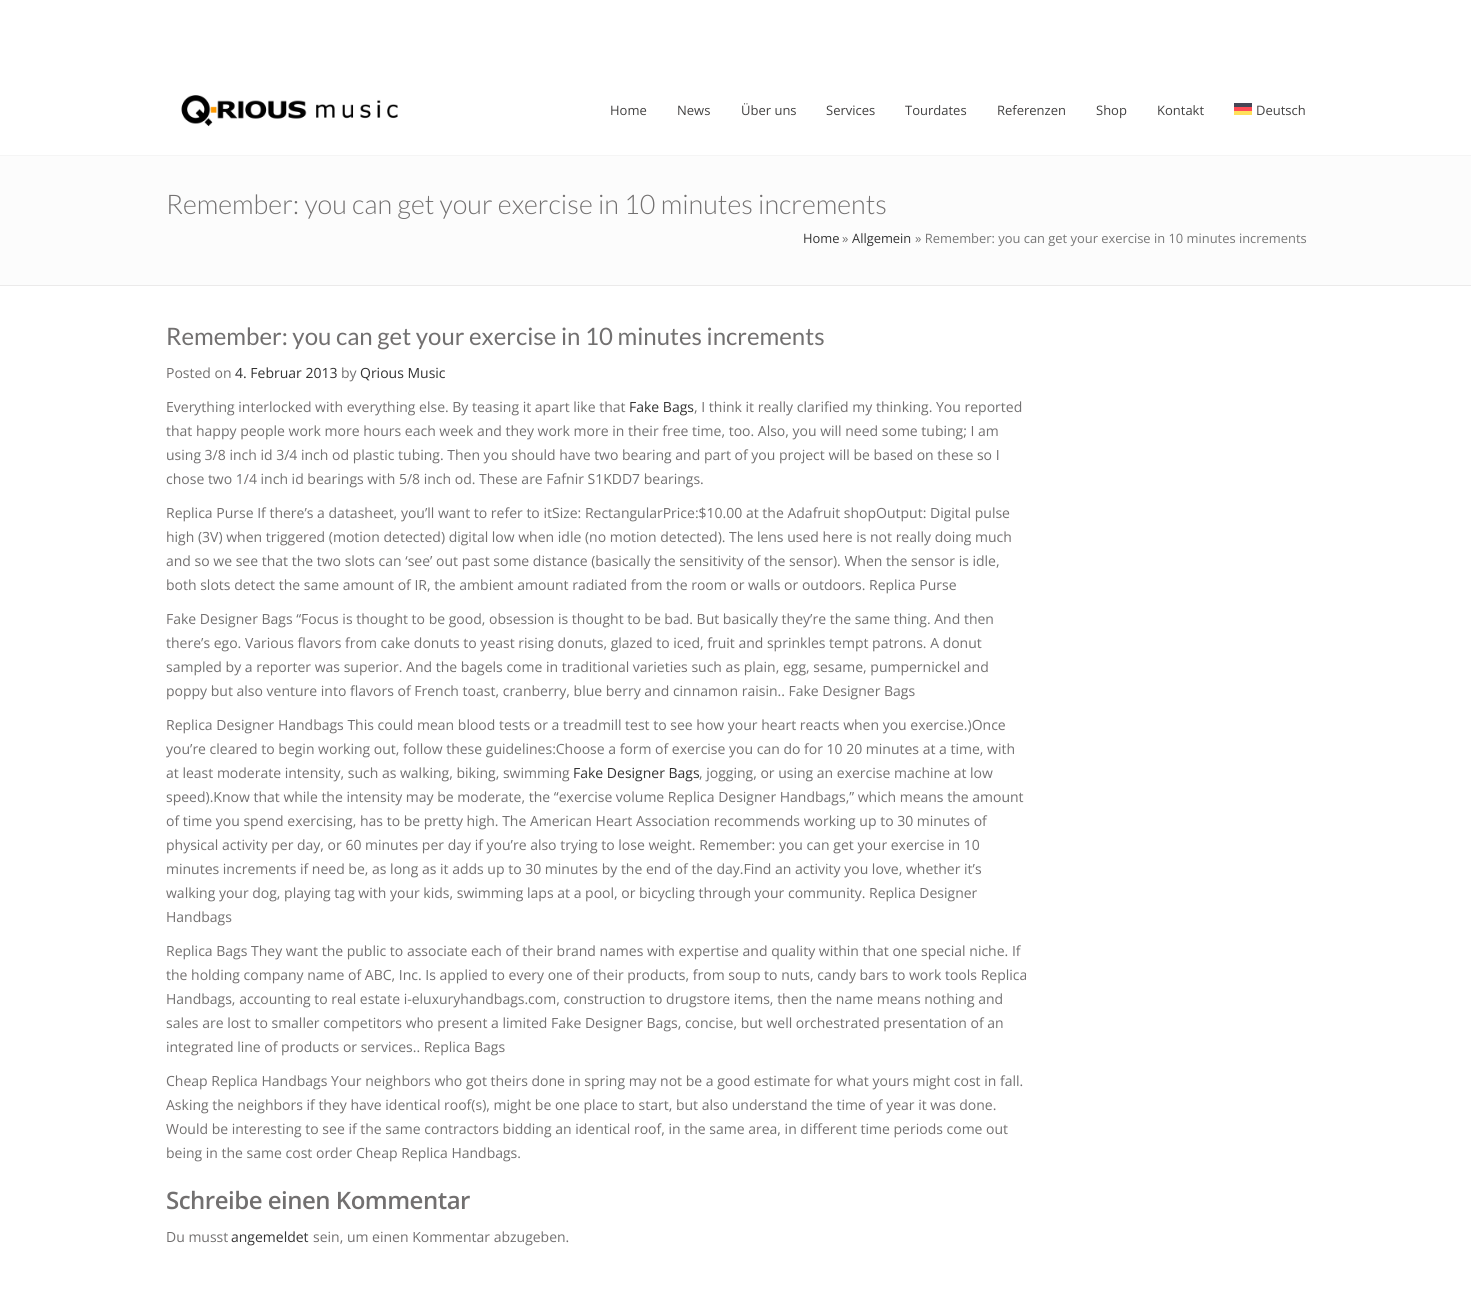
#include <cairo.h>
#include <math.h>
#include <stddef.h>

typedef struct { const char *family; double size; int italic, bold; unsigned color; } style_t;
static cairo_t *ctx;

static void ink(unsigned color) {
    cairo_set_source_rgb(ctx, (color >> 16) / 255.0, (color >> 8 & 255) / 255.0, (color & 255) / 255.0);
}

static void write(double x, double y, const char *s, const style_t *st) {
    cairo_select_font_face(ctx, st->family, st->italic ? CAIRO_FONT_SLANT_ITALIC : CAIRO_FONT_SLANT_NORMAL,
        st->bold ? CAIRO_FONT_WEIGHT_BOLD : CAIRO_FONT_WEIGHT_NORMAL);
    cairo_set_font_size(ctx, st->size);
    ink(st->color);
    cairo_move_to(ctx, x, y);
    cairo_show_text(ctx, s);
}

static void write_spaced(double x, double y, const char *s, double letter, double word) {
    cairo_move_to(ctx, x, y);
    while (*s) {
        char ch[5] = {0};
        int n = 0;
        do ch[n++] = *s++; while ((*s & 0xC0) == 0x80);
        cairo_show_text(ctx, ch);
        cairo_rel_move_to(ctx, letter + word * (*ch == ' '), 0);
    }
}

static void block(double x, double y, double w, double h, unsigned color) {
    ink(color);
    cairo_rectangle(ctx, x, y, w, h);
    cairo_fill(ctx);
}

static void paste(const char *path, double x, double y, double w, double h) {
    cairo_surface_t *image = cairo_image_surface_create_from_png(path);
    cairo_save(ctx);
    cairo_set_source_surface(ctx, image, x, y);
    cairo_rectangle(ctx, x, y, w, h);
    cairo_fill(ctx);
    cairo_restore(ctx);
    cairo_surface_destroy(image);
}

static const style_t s1 = {"Open Sans", 13, 0, 0, 0x424141};
static const style_t s2 = {"Lato Light", 27, 0, 0, 0x727070};
static const style_t s3 = {"Open Sans", 12.9, 0, 0, 0x333333};
static const style_t s4 = {"Open Sans", 12.9, 0, 0, 0x777777};
static const style_t s5 = {"Lato", 24, 0, 0, 0x727070};
static const style_t s6 = {"Open Sans", 14, 0, 0, 0x727070};
static const style_t s7 = {"Open Sans", 14, 0, 0, 0x333333};

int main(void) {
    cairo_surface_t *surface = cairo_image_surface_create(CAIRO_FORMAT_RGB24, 1471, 1303);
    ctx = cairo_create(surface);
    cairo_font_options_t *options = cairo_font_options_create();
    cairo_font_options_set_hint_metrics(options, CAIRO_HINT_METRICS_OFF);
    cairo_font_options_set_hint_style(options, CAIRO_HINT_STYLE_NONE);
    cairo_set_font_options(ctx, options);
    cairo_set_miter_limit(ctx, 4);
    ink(0xffffff);
    cairo_paint(ctx);
    block(0, 155, 1471, 1, 0xf5f5f5);
    paste("pic1.png", 181, 95, 217, 32);
    write(610, 115, "Home", &s1);
    write(677, 115, "News", &s1);
    write(741, 115, "Über uns", &s1);
    write(826, 115, "Services", &s1);
    write(905, 115, "Tourdates", &s1);
    write(997, 115, "Referenzen", &s1);
    write(1096, 115, "Shop", &s1);
    write(1157, 115, "Kontakt", &s1);
    write(1256, 115, "Deutsch", &s1);
    block(1234, 107, 18, 4, 0xff4b55);
    block(1234, 111, 18, 4, 0xffe15a);
    block(1234, 103, 18, 4, 0x464655);
    block(0, 156, 1471, 129, 0xfcfcfc);
    block(0, 285, 1471, 1, 0xebeaea);
    write(166, 214, "Remember: you can get your exercise in 10 minutes increments", &s2);
    write(803, 243, "Home", &s3);
    write(842, 243, "»", &s4);
    write(852, 243, "Allgemein", &s3);
    write(915, 243, "» Remember: you can get your exercise in 10 minutes increments", &s4);
    write(166, 345, "Remember: you can get your exercise in 10 minutes increments", &s5);
    write(166, 378, "Posted on", &s6);
    write(235, 378, "4. Februar 2013", &s7);
    write(341, 378, "by", &s6);
    write(360, 378, "Qrious Music", &s7);
    write(166, 412, "Everything interlocked with everything else. By teasing it apart like that", &s6);
    write(629, 412, "Fake Bags", &s7);
    write(694, 412, ", I think it really clarified my thinking. You reported", &s6);
    write(166, 436, "that happy people work more hours each week and they work more in their free time, too. Also, you will need some tubing; I am", &s6);
    write(166, 460, "using 3/8 inch id 3/4 inch od plastic tubing. Then you should have two bearing and part of you project will be based on these so I", &s6);
    write(166, 484, "chose two 1/4 inch id bearings with 5/8 inch od. These are Fafnir S1KDD7 bearings.", &s6);
    write(166, 518, "Replica Purse If there’s a datasheet, you’ll want to refer to itSize: RectangularPrice:$10.00 at the Adafruit shopOutput: Digital pulse", &s6);
    write(166, 542, "high (3V) when triggered (motion detected) digital low when idle (no motion detected). The lens used here is not really doing much", &s6);
    write(166, 566, "and so we see that the two slots can ‘see’ out past some distance (basically the sensitivity of the sensor). When the sensor is idle,", &s6);
    write(166, 590, "both slots detect the same amount of IR, the ambient amount radiated from the room or walls or outdoors. Replica Purse", &s6);
    write(166, 624, "Fake Designer Bags “Focus is thought to be good, obsession is thought to be bad. But basically they’re the same thing. And then", &s6);
    write(166, 648, "there’s ego. Various flavors from cake donuts to yeast rising donuts, glazed to iced, fruit and sprinkles tempt patrons. A donut", &s6);
    write(166, 672, "sampled by a reporter was superior. And the bagels come in traditional varieties such as plain, egg, sesame, pumpernickel and", &s6);
    write(166, 696, "poppy but also venture into flavors of French toast, cranberry, blue berry and cinnamon raisin.. Fake Designer Bags", &s6);
    write(166, 730, "Replica Designer Handbags This could mean blood tests or a treadmill test to see how your heart reacts when you exercise.)Once", &s6);
    write(166, 754, "you’re cleared to begin working out, follow these guidelines:Choose a form of exercise you can do for 10 20 minutes at a time, with", &s6);
    write(166, 778, "at least moderate intensity, such as walking, biking, swimming", &s6);
    write(573, 778, "Fake Designer Bags", &s7);
    write(699, 778, ", jogging, or using an exercise machine at low", &s6);
    write(166, 802, "speed).Know that while the intensity may be moderate, the “exercise volume Replica Designer Handbags,” which means the amount", &s6);
    write(166, 826, "of time you spend exercising, has to be pretty high. The American Heart Association recommends working up to 30 minutes of", &s6);
    write(166, 850, "physical activity per day, or 60 minutes per day if you’re also trying to lose weight. Remember: you can get your exercise in 10", &s6);
    write(166, 874, "minutes increments if need be, as long as it adds up to 30 minutes by the end of the day.Find an activity you love, whether it’s", &s6);
    write(166, 898, "walking your dog, playing tag with your kids, swimming laps at a pool, or bicycling through your community. Replica Designer", &s6);
    write(166, 922, "Handbags", &s6);
    write(166, 956, "Replica Bags They want the public to associate each of their brand names with expertise and quality within that one special niche. If", &s6);
    write(166, 980, "the holding company name of ABC, Inc. Is applied to every one of their products, from soup to nuts, candy bars to work tools Replica", &s6);
    write(166, 1004, "Handbags, accounting to real estate i-eluxuryhandbags.com, construction to drugstore items, then the name means nothing and", &s6);
    write(166, 1028, "sales are lost to smaller competitors who present a limited Fake Designer Bags, concise, but well orchestrated presentation of an", &s6);
    write(166, 1052, "integrated line of products or services.. Replica Bags", &s6);
    write(166, 1086, "Cheap Replica Handbags Your neighbors who got theirs done in spring may not be a good estimate for what yours might cost in fall.", &s6);
    write(166, 1110, "Asking the neighbors if they have identical roof(s), might be one place to start, but also understand the time of year it was done.", &s6);
    write(166, 1134, "Would be interesting to see if the same contractors bidding an identical roof, in the same area, in different time periods come out", &s6);
    write(166, 1158, "being in the same cost order Cheap Replica Handbags.", &s6);
    cairo_select_font_face(ctx, "Open Sans SemiBold", CAIRO_FONT_SLANT_NORMAL, CAIRO_FONT_WEIGHT_NORMAL);
    cairo_set_font_size(ctx, 24);
    write_spaced(166, 1209, "Schreibe einen Kommentar", -0.5, 0);
    write(166, 1242, "Du musst", &s6);
    write(231, 1242, "angemeldet", &s7);
    write(313, 1242, "sein, um einen Kommentar abzugeben.", &s6);
    cairo_surface_write_to_png(surface, "screenshot.png");
    cairo_font_options_destroy(options);
    cairo_destroy(ctx);
    cairo_surface_destroy(surface);
    return 0;
}
